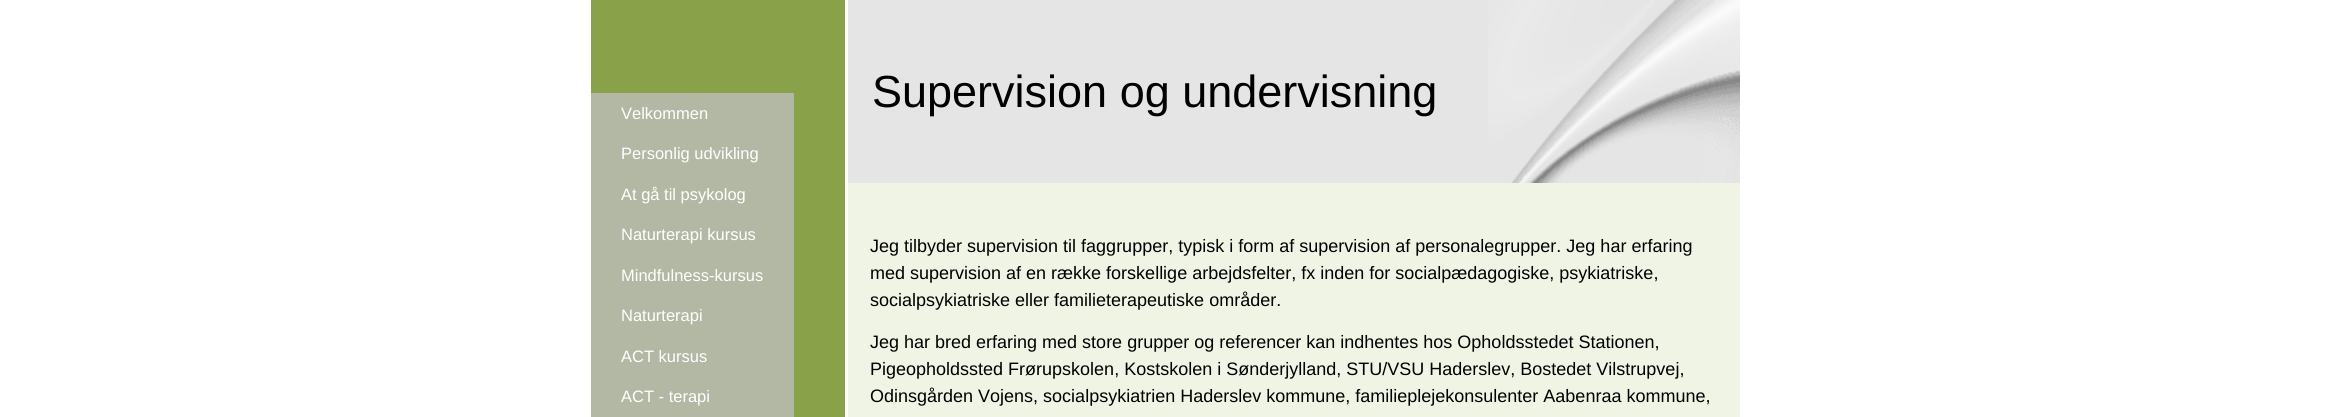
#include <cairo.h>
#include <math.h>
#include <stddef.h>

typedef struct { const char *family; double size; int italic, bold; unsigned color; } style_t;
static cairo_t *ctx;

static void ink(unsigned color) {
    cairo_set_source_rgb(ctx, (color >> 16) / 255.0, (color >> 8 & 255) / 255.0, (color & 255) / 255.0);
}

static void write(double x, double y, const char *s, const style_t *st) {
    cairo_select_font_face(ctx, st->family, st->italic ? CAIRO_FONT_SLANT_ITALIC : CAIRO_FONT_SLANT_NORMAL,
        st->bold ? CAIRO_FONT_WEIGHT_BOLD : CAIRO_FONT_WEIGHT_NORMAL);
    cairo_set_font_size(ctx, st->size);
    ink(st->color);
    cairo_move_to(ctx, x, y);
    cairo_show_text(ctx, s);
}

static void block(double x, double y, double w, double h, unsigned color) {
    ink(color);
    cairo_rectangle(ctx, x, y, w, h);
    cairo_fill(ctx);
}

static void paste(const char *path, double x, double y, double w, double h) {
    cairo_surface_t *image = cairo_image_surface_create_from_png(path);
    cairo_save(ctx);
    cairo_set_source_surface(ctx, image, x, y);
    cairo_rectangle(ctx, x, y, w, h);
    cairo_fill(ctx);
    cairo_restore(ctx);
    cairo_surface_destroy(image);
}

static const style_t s1 = {"Liberation Sans", 16.5, 0, 0, 0xffffff};
static const style_t s2 = {"Liberation Sans", 45, 0, 0, 0x000000};
static const style_t s3 = {"Liberation Sans", 18, 0, 0, 0x000000};

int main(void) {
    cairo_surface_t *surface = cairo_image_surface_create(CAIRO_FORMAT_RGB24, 2331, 417);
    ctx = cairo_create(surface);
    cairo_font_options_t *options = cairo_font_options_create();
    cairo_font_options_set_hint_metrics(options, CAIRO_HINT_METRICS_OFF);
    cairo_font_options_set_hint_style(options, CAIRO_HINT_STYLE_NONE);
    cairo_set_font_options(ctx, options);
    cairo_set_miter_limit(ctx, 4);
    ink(0xffffff);
    cairo_paint(ctx);
    block(591, 0, 254, 417, 0x89a249);
    block(591, 93, 203, 324, 0xb2b8a3);
    write(621, 119, "Velkommen", &s1);
    write(621, 159, "Personlig udvikling", &s1);
    write(621, 200, "At gå til psykolog", &s1);
    write(621, 240, "Naturterapi kursus", &s1);
    write(621, 281, "Mindfulness-kursus", &s1);
    write(621, 321, "Naturterapi", &s1);
    write(621, 362, "ACT kursus", &s1);
    write(621, 402, "ACT - terapi", &s1);
    block(848, 183, 892, 234, 0xeff4e5);
    block(848, 0, 892, 183, 0xe5e5e5);
    write(872, 107, "Supervision og undervisning", &s2);
    paste("pic1.png", 1488, 0, 252, 183);
    write(870, 252, "Jeg tilbyder supervision til faggrupper, typisk i form af supervision af personalegrupper. Jeg har erfaring", &s3);
    write(870, 279, "med supervision af en række forskellige arbejdsfelter, fx inden for socialpædagogiske, psykiatriske,", &s3);
    write(870, 306, "socialpsykiatriske eller familieterapeutiske områder.", &s3);
    write(870, 348, "Jeg har bred erfaring med store grupper og referencer kan indhentes hos Opholdsstedet Stationen,", &s3);
    write(870, 375, "Pigeopholdssted Frørupskolen, Kostskolen i Sønderjylland, STU/VSU Haderslev, Bostedet Vilstrupvej,", &s3);
    write(870, 402, "Odinsgården Vojens, socialpsykiatrien Haderslev kommune, familieplejekonsulenter Aabenraa kommune,", &s3);
    cairo_surface_write_to_png(surface, "screenshot.png");
    cairo_font_options_destroy(options);
    cairo_destroy(ctx);
    cairo_surface_destroy(surface);
    return 0;
}
